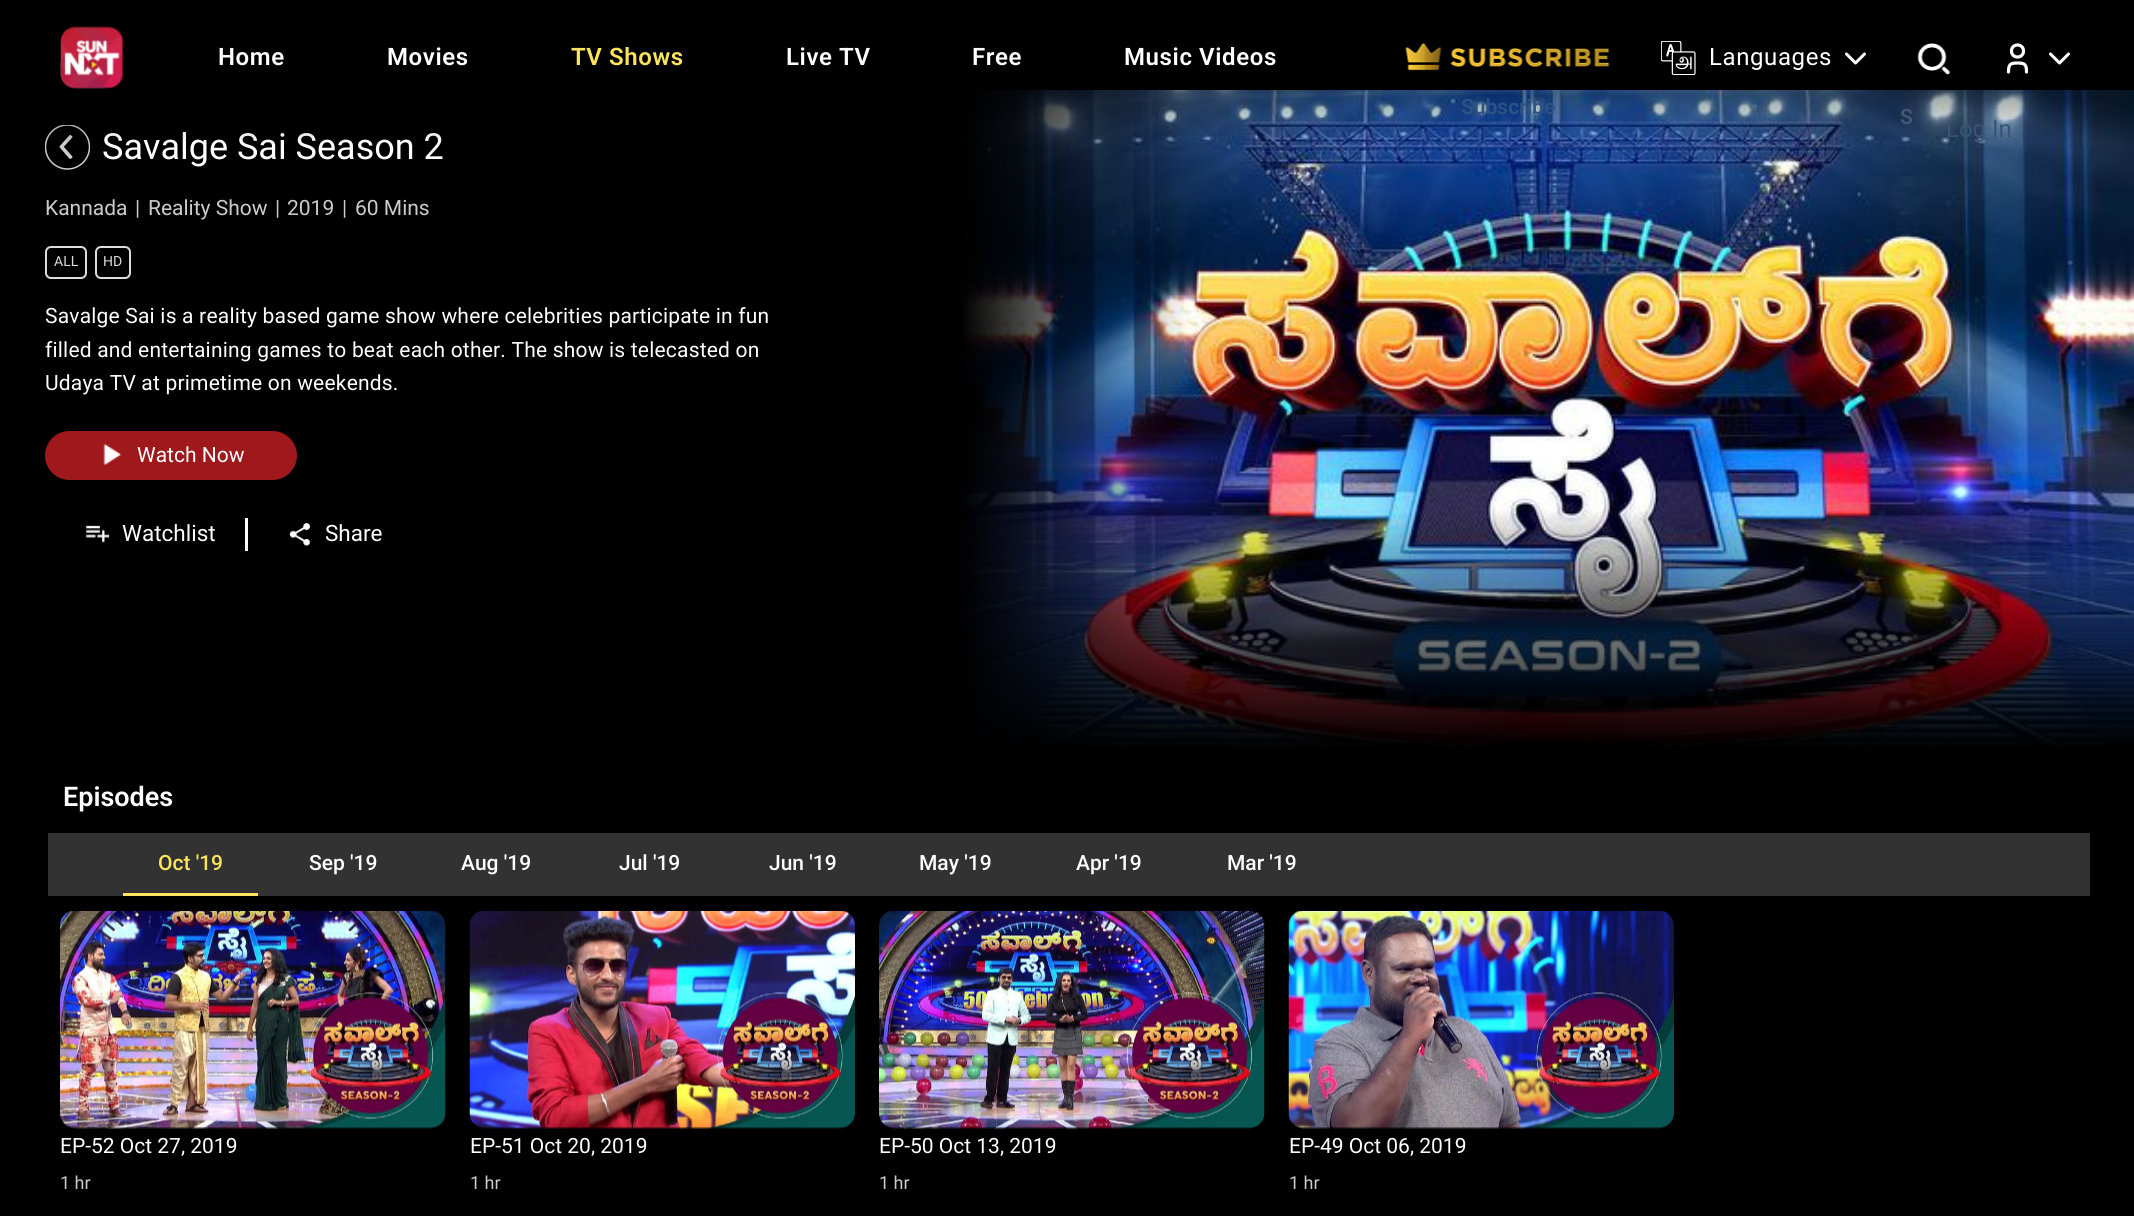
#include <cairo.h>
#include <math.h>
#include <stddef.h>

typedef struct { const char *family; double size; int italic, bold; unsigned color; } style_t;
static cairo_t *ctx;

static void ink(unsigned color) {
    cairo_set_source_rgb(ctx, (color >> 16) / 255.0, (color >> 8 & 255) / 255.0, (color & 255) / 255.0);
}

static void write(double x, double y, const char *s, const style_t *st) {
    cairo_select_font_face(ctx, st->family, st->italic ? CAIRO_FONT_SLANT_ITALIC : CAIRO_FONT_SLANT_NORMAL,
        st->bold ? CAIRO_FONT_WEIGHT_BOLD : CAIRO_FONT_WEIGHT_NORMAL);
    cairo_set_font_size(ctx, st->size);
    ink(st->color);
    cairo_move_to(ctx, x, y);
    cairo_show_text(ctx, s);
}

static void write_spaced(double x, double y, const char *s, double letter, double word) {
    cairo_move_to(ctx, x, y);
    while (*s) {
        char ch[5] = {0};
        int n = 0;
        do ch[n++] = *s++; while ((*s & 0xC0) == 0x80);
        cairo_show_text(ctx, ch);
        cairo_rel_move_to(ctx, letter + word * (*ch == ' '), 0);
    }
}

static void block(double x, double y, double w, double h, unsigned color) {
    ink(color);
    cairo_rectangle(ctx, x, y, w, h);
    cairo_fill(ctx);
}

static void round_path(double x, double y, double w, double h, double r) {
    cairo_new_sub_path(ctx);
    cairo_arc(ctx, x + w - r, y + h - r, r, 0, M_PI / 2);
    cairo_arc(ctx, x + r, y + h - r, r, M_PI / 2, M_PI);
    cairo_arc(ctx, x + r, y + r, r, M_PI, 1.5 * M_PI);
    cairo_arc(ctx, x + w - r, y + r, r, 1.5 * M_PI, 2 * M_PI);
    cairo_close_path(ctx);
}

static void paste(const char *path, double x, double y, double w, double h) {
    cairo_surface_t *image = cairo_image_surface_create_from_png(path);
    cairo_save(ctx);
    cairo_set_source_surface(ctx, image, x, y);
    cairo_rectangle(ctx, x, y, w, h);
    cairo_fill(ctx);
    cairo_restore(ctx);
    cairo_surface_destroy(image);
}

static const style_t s1 = {"Roboto", 36, 0, 0, 0xffffff};
static const style_t s2 = {"Roboto SemiBold", 21, 0, 0, 0x2c5286};
static const style_t s3 = {"Roboto SemiBold", 21, 0, 0, 0x435972};
static const style_t s4 = {"Roboto", 24, 0, 0, 0x3a5573};
static const style_t s5 = {"Roboto", 21, 0, 0, 0xcccccc};
static const style_t s6 = {"Roboto", 14, 0, 0, 0xdddddd};
static const style_t s7 = {"Roboto", 21, 0, 0, 0xffffff};
static const style_t s8 = {"Roboto", 22.5, 0, 0, 0xffffff};
static const style_t s9 = {"Roboto SemiBold", 27, 0, 0, 0xffffff};
static const style_t s10 = {"Roboto Medium", 21, 0, 0, 0xfce45e};
static const style_t s11 = {"Roboto Medium", 21, 0, 0, 0xffffff};
static const style_t s12 = {"Roboto", 18, 0, 0, 0xcccccc};

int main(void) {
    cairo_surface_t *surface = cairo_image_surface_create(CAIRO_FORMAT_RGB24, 2134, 1216);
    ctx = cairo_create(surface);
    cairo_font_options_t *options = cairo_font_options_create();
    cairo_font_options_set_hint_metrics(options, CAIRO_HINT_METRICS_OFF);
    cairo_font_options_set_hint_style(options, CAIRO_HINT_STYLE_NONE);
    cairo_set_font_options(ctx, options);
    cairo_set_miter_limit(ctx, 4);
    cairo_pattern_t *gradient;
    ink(0x000000);
    cairo_paint(ctx);
    paste("pic5.png", 45, 125, 45, 45);
    write(102, 159, "Savalge Sai Season 2", &s1);
    paste("pic9.png", 960, 90, 1174, 660);
    gradient = cairo_pattern_create_linear(1067, 0, 1067, 144);
    cairo_pattern_add_color_stop_rgba(gradient, 0, 0, 0, 0, 0.9);
    cairo_pattern_add_color_stop_rgba(gradient, 0.5, 0, 0, 0, 0.5);
    cairo_pattern_add_color_stop_rgba(gradient, 1, 0, 0, 0, 0);
    cairo_set_source(ctx, gradient);
    cairo_pattern_destroy(gradient);
    cairo_rectangle(ctx, 46, 90, 2088, 51);
    cairo_fill(ctx);
    paste("pic1.png", 60, 26, 63, 63);
    cairo_select_font_face(ctx, "Roboto SemiBold", CAIRO_FONT_SLANT_NORMAL, CAIRO_FONT_WEIGHT_NORMAL);
    cairo_set_font_size(ctx, 24);
    ink(0xffffff);
    write_spaced(218, 65, "Home", 0.6, 0);
    write_spaced(387, 65, "Movies", 0.6, 0);
    ink(0xfce45e);
    write_spaced(571, 65, "TV Shows", 0.6, 0);
    ink(0xffffff);
    write_spaced(786, 65, "Live TV", 0.6, 0);
    write_spaced(972, 65, "Free", 0.6, 0);
    write_spaced(1124, 65, "Music Videos", 0.6, 0);
    paste("pic2.png", 1661, 41, 35, 34);
    cairo_select_font_face(ctx, "Roboto", CAIRO_FONT_SLANT_NORMAL, CAIRO_FONT_WEIGHT_NORMAL);
    write_spaced(1709, 65, "Languages", 0.6, 0);
    cairo_new_path(ctx);
    cairo_move_to(ctx, 1846.5, 54);
    cairo_line_to(ctx, 1855.5, 63);
    cairo_line_to(ctx, 1864.5, 54);
    cairo_set_line_width(ctx, 3);
    cairo_set_line_cap(ctx, CAIRO_LINE_CAP_ROUND);
    cairo_set_line_join(ctx, CAIRO_LINE_JOIN_ROUND);
    cairo_stroke(ctx);
    paste("pic3.png", 1405, 43, 205, 30);
    write(1461, 114, "Subscribe", &s2);
    paste("pic4.png", 1917, 43, 34, 32);
    write(1900, 124, "S", &s3);
    cairo_new_path(ctx);
    cairo_move_to(ctx, 2011.5, 51);
    cairo_curve_to(ctx, 2011.5, 59, 2023.5, 59, 2023.5, 51);
    cairo_curve_to(ctx, 2023.5, 43, 2011.5, 43, 2011.5, 51);
    cairo_close_path(ctx);
    cairo_move_to(ctx, 2008.5, 72);
    cairo_curve_to(ctx, 2008.5, 64.5, 2010, 63, 2017.5, 63);
    cairo_curve_to(ctx, 2025, 63, 2026.5, 64.5, 2026.5, 72);
    ink(0xffffff);
    cairo_set_line_width(ctx, 3.2);
    cairo_stroke(ctx);
    cairo_new_path(ctx);
    cairo_move_to(ctx, 2050.5, 54);
    cairo_line_to(ctx, 2059.5, 63);
    cairo_line_to(ctx, 2068.5, 54);
    cairo_set_line_width(ctx, 3);
    cairo_stroke(ctx);
    write(1946, 137, "Log In", &s4);
    write(45, 215, "Kannada", &s5);
    write(135, 215, "|", &s5);
    write(148, 215, "Reality Show", &s5);
    write(275, 215, "|", &s5);
    write(287, 215, "2019", &s5);
    write(342, 215, "|", &s5);
    write(355, 215, "60 Mins", &s5);
    round_path(46, 247, 40, 31, 5);
    ink(0xdddddd);
    cairo_set_line_width(ctx, 2);
    cairo_set_line_cap(ctx, CAIRO_LINE_CAP_BUTT);
    cairo_set_line_join(ctx, CAIRO_LINE_JOIN_MITER);
    cairo_stroke(ctx);
    write(54, 266, "ALL", &s6);
    round_path(96, 247, 34, 31, 5);
    cairo_stroke(ctx);
    write(103, 266, "HD", &s6);
    cairo_set_font_size(ctx, 21);
    ink(0xffffff);
    write_spaced(45, 323, "Savalge Sai is a reality based game show where celebrities participate in fun", 0.2, 0);
    write_spaced(45, 357, "filled and entertaining games to beat each other. The show is telecasted on", 0.2, 0);
    write_spaced(45, 390, "Udaya TV at primetime on weekends.", 0.2, 0);
    ink(0x9f181b);
    round_path(45, 431, 252, 49, 24.5);
    cairo_fill(ctx);
    paste("pic6.png", 103, 444, 19, 21);
    write(137, 462, "Watch Now", &s7);
    block(245, 518, 3, 33, 0xffffff);
    paste("pic7.png", 85, 525, 25, 18);
    write(122, 541, "Watchlist", &s8);
    paste("pic8.png", 289, 523, 21, 23);
    write(325, 541, "Share", &s8);
    write(63, 806, "Episodes", &s9);
    block(48, 833, 2042, 63, 0x323232);
    block(123, 893, 135, 3, 0xfce45e);
    write(158, 870, "Oct '19", &s10);
    write(309, 870, "Sep '19", &s11);
    write(461, 870, "Aug '19", &s11);
    write(619, 870, "Jul '19", &s11);
    write(769, 870, "Jun '19", &s11);
    write(919, 870, "May '19", &s11);
    write(1076, 870, "Apr '19", &s11);
    write(1227, 870, "Mar '19", &s11);
    paste("pic10.png", 60, 911, 386, 218);
    write(60, 1153, "EP-52 Oct 27, 2019", &s7);
    write(60, 1189, "1 hr", &s12);
    paste("pic11.png", 469, 911, 386, 218);
    write(470, 1153, "EP-51 Oct 20, 2019", &s7);
    write(470, 1189, "1 hr", &s12);
    paste("pic12.png", 879, 911, 386, 218);
    write(879, 1153, "EP-50 Oct 13, 2019", &s7);
    write(879, 1189, "1 hr", &s12);
    paste("pic13.png", 1288, 911, 386, 218);
    write(1289, 1153, "EP-49 Oct 06, 2019", &s7);
    write(1289, 1189, "1 hr", &s12);
    cairo_surface_write_to_png(surface, "screenshot.png");
    cairo_font_options_destroy(options);
    cairo_destroy(ctx);
    cairo_surface_destroy(surface);
    return 0;
}
